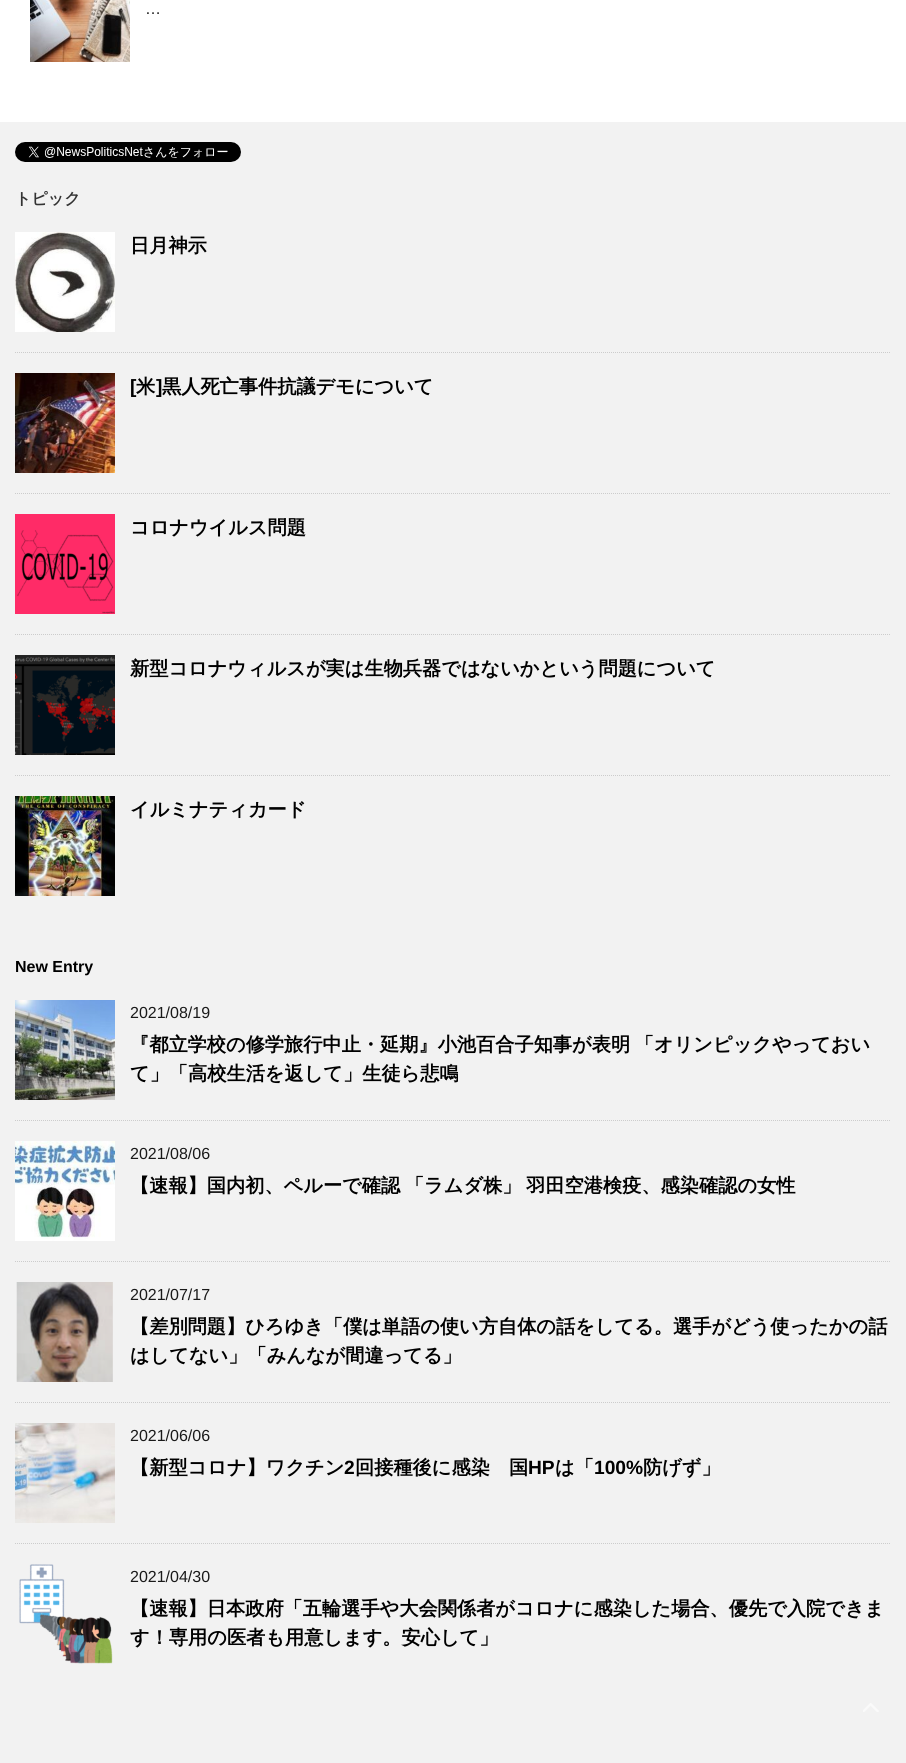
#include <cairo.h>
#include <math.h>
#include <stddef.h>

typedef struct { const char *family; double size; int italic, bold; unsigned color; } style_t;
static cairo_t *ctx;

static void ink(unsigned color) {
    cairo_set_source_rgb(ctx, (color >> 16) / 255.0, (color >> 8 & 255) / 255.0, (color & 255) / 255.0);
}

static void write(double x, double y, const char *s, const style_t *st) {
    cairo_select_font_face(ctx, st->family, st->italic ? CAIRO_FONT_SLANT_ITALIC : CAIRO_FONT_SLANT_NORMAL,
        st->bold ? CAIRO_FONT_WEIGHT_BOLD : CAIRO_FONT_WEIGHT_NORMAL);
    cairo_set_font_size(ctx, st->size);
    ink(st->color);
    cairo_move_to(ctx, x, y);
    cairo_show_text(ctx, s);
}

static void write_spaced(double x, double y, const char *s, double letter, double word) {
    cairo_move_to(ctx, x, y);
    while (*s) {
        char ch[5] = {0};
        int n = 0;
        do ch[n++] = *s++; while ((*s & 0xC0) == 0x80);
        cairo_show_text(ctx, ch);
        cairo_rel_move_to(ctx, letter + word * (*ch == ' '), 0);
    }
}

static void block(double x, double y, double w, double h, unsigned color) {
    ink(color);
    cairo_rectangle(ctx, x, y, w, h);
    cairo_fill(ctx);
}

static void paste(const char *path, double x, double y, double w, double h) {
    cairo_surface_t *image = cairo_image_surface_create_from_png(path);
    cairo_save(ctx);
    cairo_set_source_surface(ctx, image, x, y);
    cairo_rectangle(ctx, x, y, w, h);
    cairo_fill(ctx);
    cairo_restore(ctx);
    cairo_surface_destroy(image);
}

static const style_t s1 = {"Liberation Sans", 16, 0, 0, 0x1a1a1a};
static const style_t s2 = {"WenQuanYi Zen Hei", 16, 0, 1, 0x333333};
static const style_t s3 = {"WenQuanYi Zen Hei", 19.2, 0, 1, 0x000000};
static const style_t s4 = {"Liberation Sans", 19.2, 0, 1, 0x000000};
static const style_t s5 = {"Liberation Sans", 16, 0, 1, 0x000000};

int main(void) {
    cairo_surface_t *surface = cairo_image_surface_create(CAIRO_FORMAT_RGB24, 906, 1763);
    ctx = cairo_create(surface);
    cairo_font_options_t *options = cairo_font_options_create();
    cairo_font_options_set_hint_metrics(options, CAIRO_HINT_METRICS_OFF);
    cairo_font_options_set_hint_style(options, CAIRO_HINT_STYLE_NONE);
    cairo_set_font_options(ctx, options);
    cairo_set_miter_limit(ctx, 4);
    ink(0xf2f2f2);
    cairo_paint(ctx);
    block(0, 0, 906, 122, 0xffffff);
    paste("pic1.png", 30, 0, 100, 62);
    write(145, 14, "…", &s1);
    paste("pic2.png", 15, 142, 226, 20);
    write(15, 204, "トピック", &s2);
    cairo_new_path(ctx);
    cairo_move_to(ctx, 15, 352.5);
    cairo_line_to(ctx, 891, 352.5);
    ink(0xcccccc);
    cairo_set_line_width(ctx, 1);
    cairo_set_dash(ctx, (double[]){1, 1}, 2, 0);
    cairo_stroke(ctx);
    paste("pic3.png", 15, 232, 100, 100);
    write(130, 252, "日月神示", &s3);
    cairo_new_path(ctx);
    cairo_move_to(ctx, 15, 493.5);
    cairo_line_to(ctx, 891, 493.5);
    ink(0xcccccc);
    cairo_stroke(ctx);
    paste("pic4.png", 15, 373, 100, 100);
    write(130, 393, "[", &s4);
    write(136, 393, "米", &s3);
    write(156, 393, "]", &s4);
    write(162, 393, "黒人死亡事件抗議デモについて", &s3);
    cairo_new_path(ctx);
    cairo_move_to(ctx, 15, 634.5);
    cairo_line_to(ctx, 891, 634.5);
    ink(0xcccccc);
    cairo_stroke(ctx);
    paste("pic5.png", 15, 514, 100, 100);
    write(130, 534, "コロナウイルス問題", &s3);
    cairo_new_path(ctx);
    cairo_move_to(ctx, 15, 775.5);
    cairo_line_to(ctx, 891, 775.5);
    ink(0xcccccc);
    cairo_stroke(ctx);
    paste("pic6.png", 15, 655, 100, 100);
    write(130, 675, "新型コロナウィルスが実は生物兵器ではないかという問題について", &s3);
    paste("pic7.png", 15, 796, 100, 100);
    write(130, 816, "イルミナティカード", &s3);
    write(15, 972, "New Entry", &s5);
    cairo_new_path(ctx);
    cairo_move_to(ctx, 15, 1120.5);
    cairo_line_to(ctx, 891, 1120.5);
    ink(0xcccccc);
    cairo_stroke(ctx);
    paste("pic8.png", 15, 1000, 100, 100);
    write(130, 1018, "2021/08/19", &s1);
    cairo_select_font_face(ctx, "WenQuanYi Zen Hei", CAIRO_FONT_SLANT_NORMAL, CAIRO_FONT_WEIGHT_BOLD);
    cairo_set_font_size(ctx, 19.2);
    ink(0x000000);
    write_spaced(130, 1051, "『都立学校の修学旅行中止・延期』小池百合子知事が表明 「オリンピックやっておい", 0, -1);
    write(130, 1080, "て」「高校生活を返して」生徒ら悲鳴", &s3);
    cairo_new_path(ctx);
    cairo_move_to(ctx, 15, 1261.5);
    cairo_line_to(ctx, 891, 1261.5);
    ink(0xcccccc);
    cairo_stroke(ctx);
    paste("pic9.png", 15, 1141, 100, 100);
    write(130, 1159, "2021/08/06", &s1);
    cairo_select_font_face(ctx, "WenQuanYi Zen Hei", CAIRO_FONT_SLANT_NORMAL, CAIRO_FONT_WEIGHT_BOLD);
    cairo_set_font_size(ctx, 19.2);
    ink(0x000000);
    write_spaced(130, 1192, "【速報】国内初、ペルーで確認 「ラムダ株」 羽田空港検疫、感染確認の女性", 0, -1);
    cairo_new_path(ctx);
    cairo_move_to(ctx, 15, 1402.5);
    cairo_line_to(ctx, 891, 1402.5);
    ink(0xcccccc);
    cairo_stroke(ctx);
    paste("pic10.png", 16, 1282, 97, 100);
    write(130, 1300, "2021/07/17", &s1);
    write(130, 1333, "【差別問題】ひろゆき「僕は単語の使い方自体の話をしてる。選手がどう使ったかの話", &s3);
    write(130, 1362, "はしてない」「みんなが間違ってる」", &s3);
    cairo_new_path(ctx);
    cairo_move_to(ctx, 15, 1543.5);
    cairo_line_to(ctx, 891, 1543.5);
    ink(0xcccccc);
    cairo_stroke(ctx);
    paste("pic11.png", 15, 1423, 100, 100);
    write(130, 1441, "2021/06/06", &s1);
    write(130, 1474, "【新型コロナ】ワクチン", &s3);
    write(344, 1474, "2", &s4);
    write(355, 1474, "回接種後に感染　国", &s3);
    write(528, 1474, "HP", &s4);
    write(555, 1474, "は「", &s3);
    write(594, 1474, "100%", &s4);
    write(643, 1474, "防げず」", &s3);
    paste("pic12.png", 19, 1564, 94, 100);
    write(130, 1582, "2021/04/30", &s1);
    write(130, 1615, "【速報】日本政府「五輪選手や大会関係者がコロナに感染した場合、優先で入院できま", &s3);
    write(130, 1644, "す！専用の医者も用意します。安心して」", &s3);
    paste("pic13.png", 863, 1703, 16, 9);
    cairo_surface_write_to_png(surface, "screenshot.png");
    cairo_font_options_destroy(options);
    cairo_destroy(ctx);
    cairo_surface_destroy(surface);
    return 0;
}
